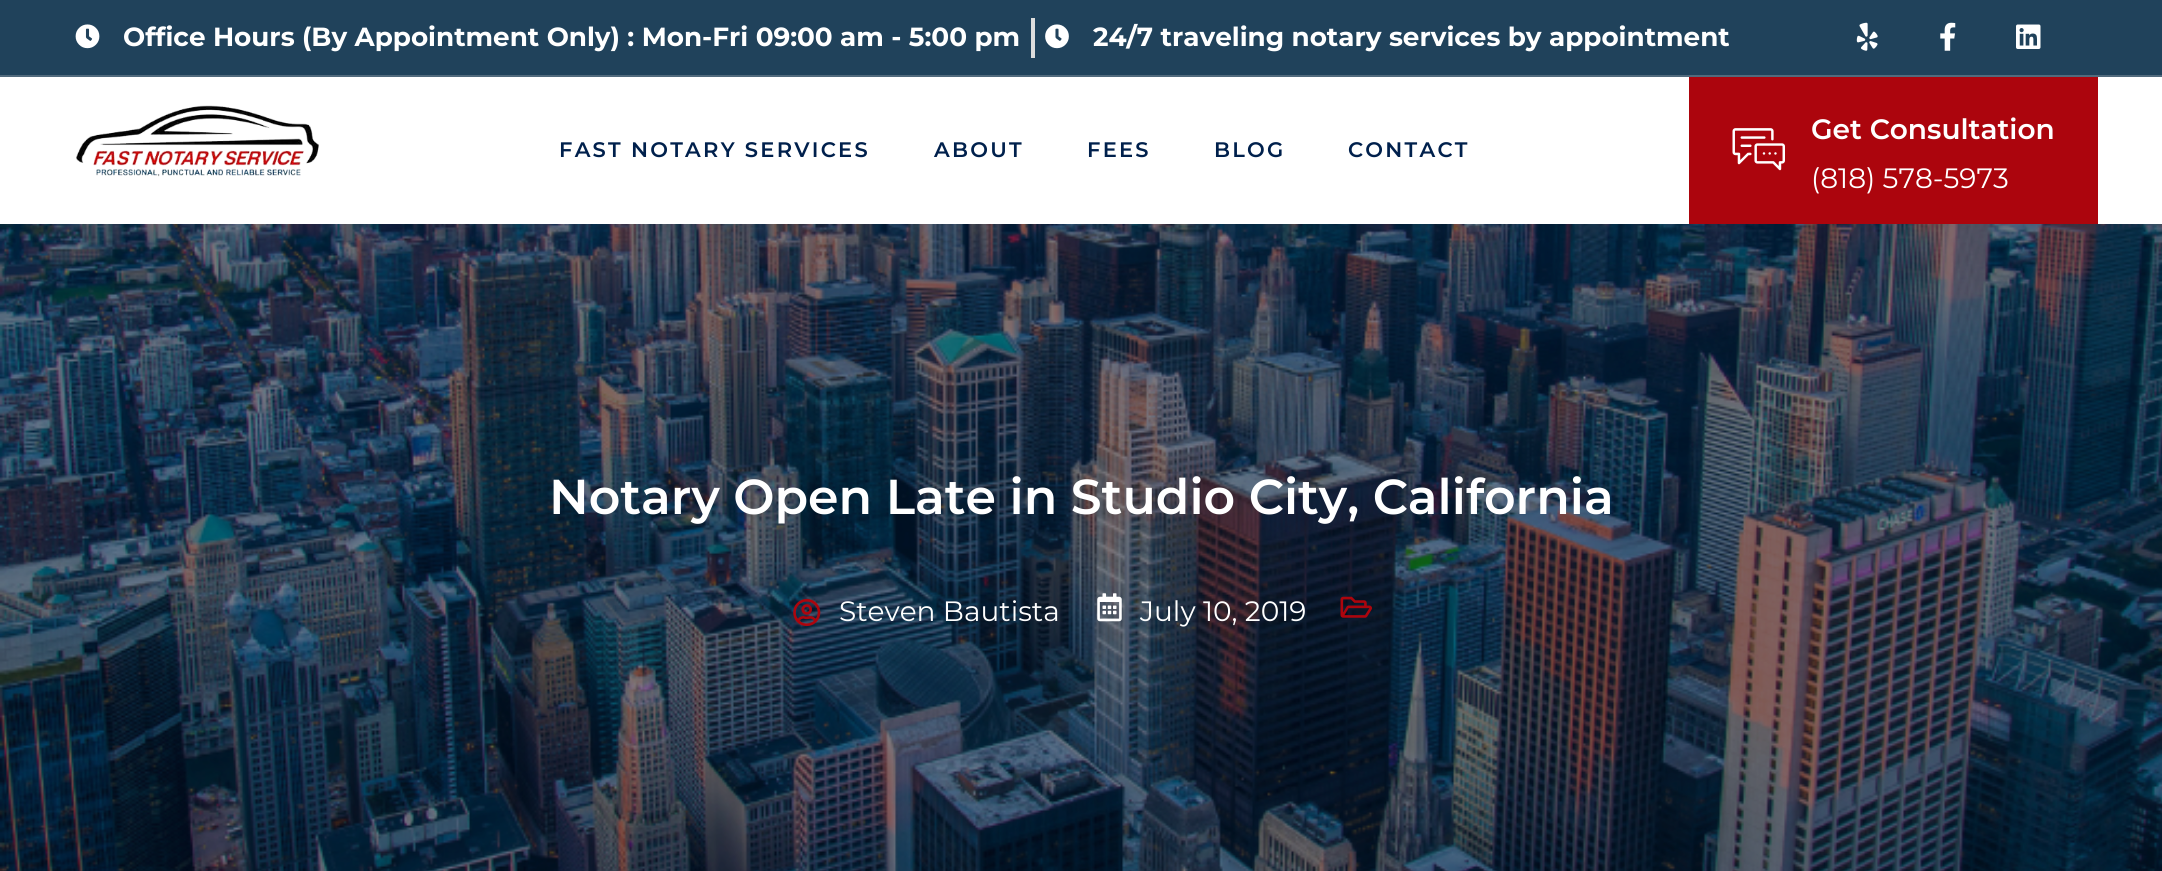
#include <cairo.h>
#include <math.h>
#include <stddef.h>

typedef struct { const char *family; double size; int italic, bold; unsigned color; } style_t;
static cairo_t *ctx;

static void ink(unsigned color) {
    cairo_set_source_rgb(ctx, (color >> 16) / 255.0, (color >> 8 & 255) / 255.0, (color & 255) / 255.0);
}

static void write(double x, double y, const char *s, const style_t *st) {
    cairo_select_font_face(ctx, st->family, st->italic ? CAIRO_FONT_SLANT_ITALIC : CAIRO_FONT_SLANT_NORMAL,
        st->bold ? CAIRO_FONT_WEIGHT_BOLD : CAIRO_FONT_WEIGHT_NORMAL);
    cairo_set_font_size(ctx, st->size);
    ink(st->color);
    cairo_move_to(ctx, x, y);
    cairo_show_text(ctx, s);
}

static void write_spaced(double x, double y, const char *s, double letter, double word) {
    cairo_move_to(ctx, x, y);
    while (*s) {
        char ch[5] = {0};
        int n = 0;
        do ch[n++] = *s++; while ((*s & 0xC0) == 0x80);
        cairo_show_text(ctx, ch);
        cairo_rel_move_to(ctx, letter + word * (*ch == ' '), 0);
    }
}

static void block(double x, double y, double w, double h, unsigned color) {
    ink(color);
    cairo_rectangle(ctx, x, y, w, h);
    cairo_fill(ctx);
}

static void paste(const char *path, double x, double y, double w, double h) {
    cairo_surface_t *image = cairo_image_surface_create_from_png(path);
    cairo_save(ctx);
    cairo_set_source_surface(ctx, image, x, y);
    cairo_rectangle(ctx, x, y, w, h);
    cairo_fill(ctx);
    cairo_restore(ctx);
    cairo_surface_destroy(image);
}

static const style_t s1 = {"Montserrat", 26.25, 0, 1, 0xffffff};
static const style_t s2 = {"Montserrat SemiBold", 28, 0, 0, 0xffffff};
static const style_t s3 = {"Montserrat", 28, 0, 0, 0xffffff};
static const style_t s4 = {"Montserrat SemiBold", 49, 0, 0, 0xffffff};

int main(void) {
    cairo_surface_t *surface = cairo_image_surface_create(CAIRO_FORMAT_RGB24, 2162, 871);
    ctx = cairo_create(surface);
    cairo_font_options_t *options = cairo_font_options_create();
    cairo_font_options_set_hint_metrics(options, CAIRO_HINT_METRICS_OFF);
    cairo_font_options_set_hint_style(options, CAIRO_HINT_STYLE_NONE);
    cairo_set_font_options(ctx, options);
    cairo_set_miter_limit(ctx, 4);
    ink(0xffffff);
    cairo_paint(ctx);
    block(0, 0, 2162, 75, 0x20425b);
    block(0, 75, 2162, 2, 0x516a7d);
    paste("pic1.png", 75, 24, 25, 25);
    write(123, 46, "Office Hours (By Appointment Only) : Mon-Fri 09:00 am - 5:00 pm", &s1);
    block(1031, 18, 4, 40, 0xdddddd);
    paste("pic2.png", 1045, 24, 24, 25);
    write(1093, 46, "24/7 traveling notary services by appointment", &s1);
    paste("pic3.png", 1856, 22, 22, 29);
    paste("pic4.png", 1940, 22, 16, 29);
    paste("pic5.png", 2016, 24, 25, 25);
    paste("pic6.png", 76, 105, 243, 72);
    cairo_select_font_face(ctx, "Montserrat SemiBold", CAIRO_FONT_SLANT_NORMAL, CAIRO_FONT_WEIGHT_NORMAL);
    cairo_set_font_size(ctx, 21);
    ink(0x00204c);
    write_spaced(559, 157, "FAST NOTARY SERVICES", 2.25, 0);
    write_spaced(934, 157, "ABOUT", 2.25, 0);
    write_spaced(1087, 157, "FEES", 2.25, 0);
    write_spaced(1214, 157, "BLOG", 2.25, 0);
    write_spaced(1348, 157, "CONTACT", 2.25, 0);
    block(1689, 77, 409, 147, 0xac050d);
    paste("pic7.png", 1732, 128, 53, 43);
    write(1811, 139, "Get Consultation", &s2);
    write(1811, 188, "(818) 578-5973", &s3);
    paste("pic8.png", 0, 224, 2162, 647);
    write(549, 514, "Notary Open Late in Studio City, California", &s4);
    paste("pic9.png", 793, 598, 28, 29);
    write(839, 621, "Steven Bautista", &s3);
    paste("pic10.png", 1097, 593, 25, 29);
    write(1140, 621, "July 10, 2019", &s3);
    paste("pic11.png", 1340, 596, 32, 22);
    cairo_surface_write_to_png(surface, "screenshot.png");
    cairo_font_options_destroy(options);
    cairo_destroy(ctx);
    cairo_surface_destroy(surface);
    return 0;
}
